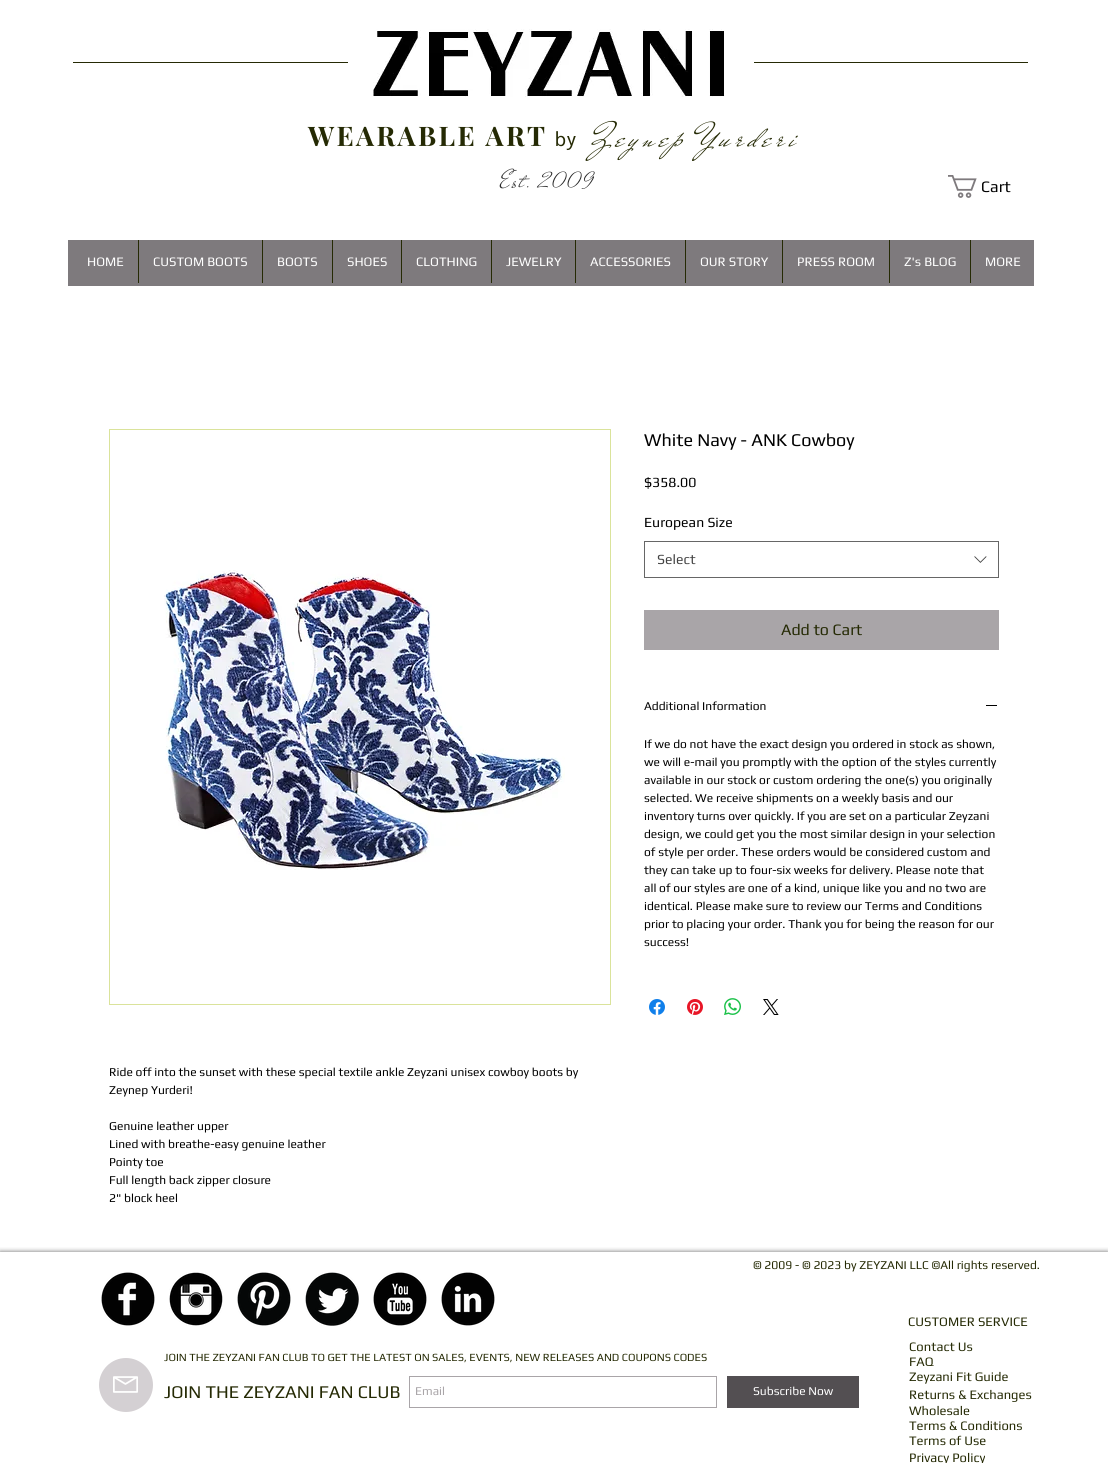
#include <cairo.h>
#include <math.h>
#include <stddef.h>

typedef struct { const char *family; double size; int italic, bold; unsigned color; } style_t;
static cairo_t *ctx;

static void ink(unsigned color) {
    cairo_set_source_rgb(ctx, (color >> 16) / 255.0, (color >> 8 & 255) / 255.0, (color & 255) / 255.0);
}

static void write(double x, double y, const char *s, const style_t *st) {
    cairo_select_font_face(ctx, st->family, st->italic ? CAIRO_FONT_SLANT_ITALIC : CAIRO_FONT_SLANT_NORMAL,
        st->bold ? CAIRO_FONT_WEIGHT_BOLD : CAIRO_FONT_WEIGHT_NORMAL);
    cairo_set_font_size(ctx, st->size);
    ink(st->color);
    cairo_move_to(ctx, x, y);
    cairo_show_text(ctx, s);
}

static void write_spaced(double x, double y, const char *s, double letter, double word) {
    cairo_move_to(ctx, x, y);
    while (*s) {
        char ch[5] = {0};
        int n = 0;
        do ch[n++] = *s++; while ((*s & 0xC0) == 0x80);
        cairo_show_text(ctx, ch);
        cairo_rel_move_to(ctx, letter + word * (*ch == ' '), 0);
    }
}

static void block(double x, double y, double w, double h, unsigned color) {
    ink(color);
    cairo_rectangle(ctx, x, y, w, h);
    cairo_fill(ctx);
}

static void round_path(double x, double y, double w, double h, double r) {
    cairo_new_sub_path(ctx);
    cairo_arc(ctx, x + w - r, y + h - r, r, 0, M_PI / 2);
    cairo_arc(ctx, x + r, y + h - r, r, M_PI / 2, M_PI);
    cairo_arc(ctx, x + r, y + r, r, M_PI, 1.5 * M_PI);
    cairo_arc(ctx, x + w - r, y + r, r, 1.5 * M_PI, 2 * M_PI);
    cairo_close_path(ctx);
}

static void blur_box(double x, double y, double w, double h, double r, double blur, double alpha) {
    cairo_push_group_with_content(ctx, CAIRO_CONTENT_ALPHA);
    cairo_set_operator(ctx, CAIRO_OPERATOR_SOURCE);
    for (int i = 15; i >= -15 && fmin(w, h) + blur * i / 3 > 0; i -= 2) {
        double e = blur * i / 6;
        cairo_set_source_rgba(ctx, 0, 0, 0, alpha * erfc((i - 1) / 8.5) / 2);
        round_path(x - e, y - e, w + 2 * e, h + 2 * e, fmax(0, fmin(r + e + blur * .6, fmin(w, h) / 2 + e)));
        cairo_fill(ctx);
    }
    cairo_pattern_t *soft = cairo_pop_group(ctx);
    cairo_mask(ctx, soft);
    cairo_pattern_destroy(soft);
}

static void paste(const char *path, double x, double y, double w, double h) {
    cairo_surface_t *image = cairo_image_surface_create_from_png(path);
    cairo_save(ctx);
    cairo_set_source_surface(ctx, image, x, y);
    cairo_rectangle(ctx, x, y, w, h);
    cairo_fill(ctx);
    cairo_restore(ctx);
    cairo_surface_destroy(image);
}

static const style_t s1 = {"Play", 16, 0, 0, 0x000000};
static const style_t s2 = {"Play", 13, 0, 0, 0xffffff};
static const style_t s3 = {"Play", 18, 0, 0, 0x000000};
static const style_t s4 = {"Play", 14, 0, 0, 0x000000};
static const style_t s5 = {"Play", 14, 0, 0, 0x444444};
static const style_t s6 = {"Play", 16, 0, 0, 0x252a04};
static const style_t s7 = {"Play", 12, 0, 0, 0x000000};
static const style_t s8 = {"Play", 12, 0, 0, 0x252a04};
static const style_t s9 = {"Play", 13, 0, 0, 0x252a04};
static const style_t s10 = {"Play", 11, 0, 0, 0x252a04};
static const style_t s11 = {"Play", 18, 0, 0, 0x252a04};
static const style_t s12 = {"Play", 12, 0, 0, 0xa9a5a8};
static const style_t s13 = {"Play", 12, 0, 0, 0xffffff};

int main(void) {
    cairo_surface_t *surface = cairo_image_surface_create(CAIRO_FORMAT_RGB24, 1108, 1463);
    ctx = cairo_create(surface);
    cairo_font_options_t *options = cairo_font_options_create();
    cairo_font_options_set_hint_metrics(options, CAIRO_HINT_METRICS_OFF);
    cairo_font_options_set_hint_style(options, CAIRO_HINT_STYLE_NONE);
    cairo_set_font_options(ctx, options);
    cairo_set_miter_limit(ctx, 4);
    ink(0xffffff);
    cairo_paint(ctx);
    block(73, 62, 275, 1, 0x252a04);
    paste("pic1.png", 373, 29, 352, 68);
    block(754, 62, 274, 1, 0x252a04);
    cairo_select_font_face(ctx, "Playfair Display", CAIRO_FONT_SLANT_NORMAL, CAIRO_FONT_WEIGHT_BOLD);
    cairo_set_font_size(ctx, 27);
    write_spaced(308, 146, "WEARABLE ART", 2.4, 0);
    cairo_select_font_face(ctx, "Sarabun", CAIRO_FONT_SLANT_NORMAL, CAIRO_FONT_WEIGHT_NORMAL);
    cairo_set_font_size(ctx, 20);
    write_spaced(555, 146, "by", 1, 0);
    cairo_select_font_face(ctx, "Mr De Haviland", CAIRO_FONT_SLANT_ITALIC, CAIRO_FONT_WEIGHT_NORMAL);
    cairo_set_font_size(ctx, 34);
    write_spaced(589, 146, "Zeynep Yurderi", 5.1, 0);
    cairo_select_font_face(ctx, "Mr De Haviland", CAIRO_FONT_SLANT_NORMAL, CAIRO_FONT_WEIGHT_NORMAL);
    cairo_set_font_size(ctx, 25);
    ink(0x292929);
    write_spaced(500, 187, "Est.", 2, 0);
    cairo_set_font_size(ctx, 23);
    write_spaced(540, 187, "2009", 2, 0);
    paste("pic2.png", 948, 175, 29, 23);
    write(981, 192, "Cart", &s1);
    block(68, 240, 966, 46, 0x7e7a7d);
    write(87, 266, "HOME", &s2);
    block(138, 240, 1, 43, 0x252a04);
    write(153, 266, "CUSTOM BOOTS", &s2);
    block(262, 240, 1, 43, 0x252a04);
    write(277, 266, "BOOTS", &s2);
    block(332, 240, 1, 43, 0x252a04);
    write(347, 266, "SHOES", &s2);
    block(401, 240, 1, 43, 0x252a04);
    write(416, 266, "CLOTHING", &s2);
    block(491, 240, 1, 43, 0x252a04);
    write(506, 266, "JEWELRY", &s2);
    block(575, 240, 1, 43, 0x252a04);
    write(590, 266, "ACCESSORIES", &s2);
    block(685, 240, 1, 43, 0x252a04);
    write(700, 266, "OUR STORY", &s2);
    block(782, 240, 1, 43, 0x252a04);
    write(797, 266, "PRESS ROOM", &s2);
    block(889, 240, 1, 43, 0x252a04);
    write(904, 266, "Z's BLOG", &s2);
    block(970, 240, 1, 43, 0x252a04);
    write(985, 266, "MORE", &s2);
    write(644, 446, "White Navy - ANK Cowboy", &s3);
    write(644, 487, "$358.00", &s4);
    write(644, 527, "European Size", &s4);
    cairo_rectangle(ctx, 644.5, 541.5, 354, 36);
    ink(0x666666);
    cairo_set_line_width(ctx, 1);
    cairo_stroke(ctx);
    write(657, 564, "Select", &s5);
    paste("pic3.png", 974, 556, 13, 7);
    block(644, 610, 355, 40, 0xa9a5a8);
    write(781, 635, "Add to Cart", &s6);
    write(644, 710, "Additional Information", &s7);
    block(986, 705, 11, 1, 0x000000);
    write(644, 748, "If we do not have the exact design you ordered in stock as shown,", &s7);
    write(644, 766, "we will e-mail you promptly with the option of the styles currently", &s7);
    write(644, 784, "available in our stock or custom ordering the one(s) you originally", &s7);
    write(644, 802, "selected. We receive shipments on a weekly basis and our", &s7);
    write(644, 820, "inventory turns over quickly. If you are set on a particular Zeyzani", &s7);
    write(644, 838, "design, we could get you the most similar design in your selection", &s7);
    write(644, 856, "of style per order. These orders would be considered custom and", &s7);
    write(644, 874, "they can take up to four-six weeks for delivery. Please note that", &s7);
    write(644, 892, "all of our styles are one of a kind, unique like you and no two are", &s7);
    write(644, 910, "identical. Please make sure to review our Terms and Conditions", &s7);
    write(644, 928, "prior to placing your order. Thank you for being the reason for our", &s7);
    write(644, 946, "success!", &s7);
    paste("pic4.png", 649, 999, 16, 16);
    paste("pic5.png", 687, 999, 16, 16);
    paste("pic6.png", 724, 998, 17, 17);
    paste("pic7.png", 763, 999, 16, 16);
    cairo_rectangle(ctx, 109.5, 429.5, 501, 575);
    ink(0xdae39b);
    cairo_stroke(ctx);
    paste("pic8.png", 164, 570, 401, 300);
    write(109, 1076, "Ride off into the sunset with these special textile ankle Zeyzani unisex cowboy boots by", &s7);
    write(109, 1094, "Zeynep Yurderi!", &s7);
    write(109, 1130, "Genuine leather upper", &s7);
    write(109, 1148, "Lined with breathe-easy genuine leather", &s7);
    write(109, 1166, "Pointy toe", &s7);
    write(109, 1184, "Full length back zipper closure", &s7);
    write(109, 1202, "2\" block heel", &s7);
    cairo_save(ctx);
    cairo_rectangle(ctx, 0, 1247, 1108, 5);
    cairo_clip(ctx);
    ink(0x000000);
    blur_box(0, 1252, 1108, 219, 0, 2.5, 0.6);
    cairo_restore(ctx);
    write(753, 1269, "© 2009 - © 2023 by ZEYZANI LLC ©All rights reserved.", &s8);
    paste("pic9.png", 101, 1272, 54, 54);
    paste("pic10.png", 169, 1272, 54, 54);
    paste("pic11.png", 237, 1272, 54, 54);
    paste("pic12.png", 305, 1272, 54, 54);
    paste("pic13.png", 373, 1272, 54, 54);
    paste("pic14.png", 441, 1272, 54, 54);
    write(908, 1326, "CUSTOMER SERVICE", &s9);
    write(909, 1351, "Contact Us", &s9);
    ink(0xd4d0d3);
    cairo_new_path(ctx);
    cairo_arc(ctx, 126, 1385, 27, 0, 2 * M_PI);
    cairo_fill(ctx);
    paste("pic15.png", 113, 1376, 25, 17);
    write(164, 1361, "JOIN THE ZEYZANI FAN CLUB TO GET THE LATEST ON SALES, EVENTS, NEW RELEASES AND COUPONS CODES", &s10);
    write(164, 1398, "JOIN THE ZEYZANI FAN CLUB", &s11);
    cairo_rectangle(ctx, 409.5, 1376.5, 307, 31);
    ink(0xa9a5a8);
    cairo_stroke(ctx);
    write(415, 1395, "Email", &s12);
    block(727, 1376, 132, 32, 0x534f52);
    write(753, 1395, "Subscribe Now", &s13);
    write(909, 1366, "FAQ", &s9);
    write(909, 1381, "Zeyzani Fit Guide", &s9);
    write(909, 1399, "Returns & Exchanges", &s9);
    write(909, 1415, "Wholesale", &s9);
    write(909, 1430, "Terms & Conditions", &s9);
    write(909, 1445, "Terms of Use", &s9);
    write(909, 1462, "Privacy Policy", &s9);
    cairo_surface_write_to_png(surface, "screenshot.png");
    cairo_font_options_destroy(options);
    cairo_destroy(ctx);
    cairo_surface_destroy(surface);
    return 0;
}
